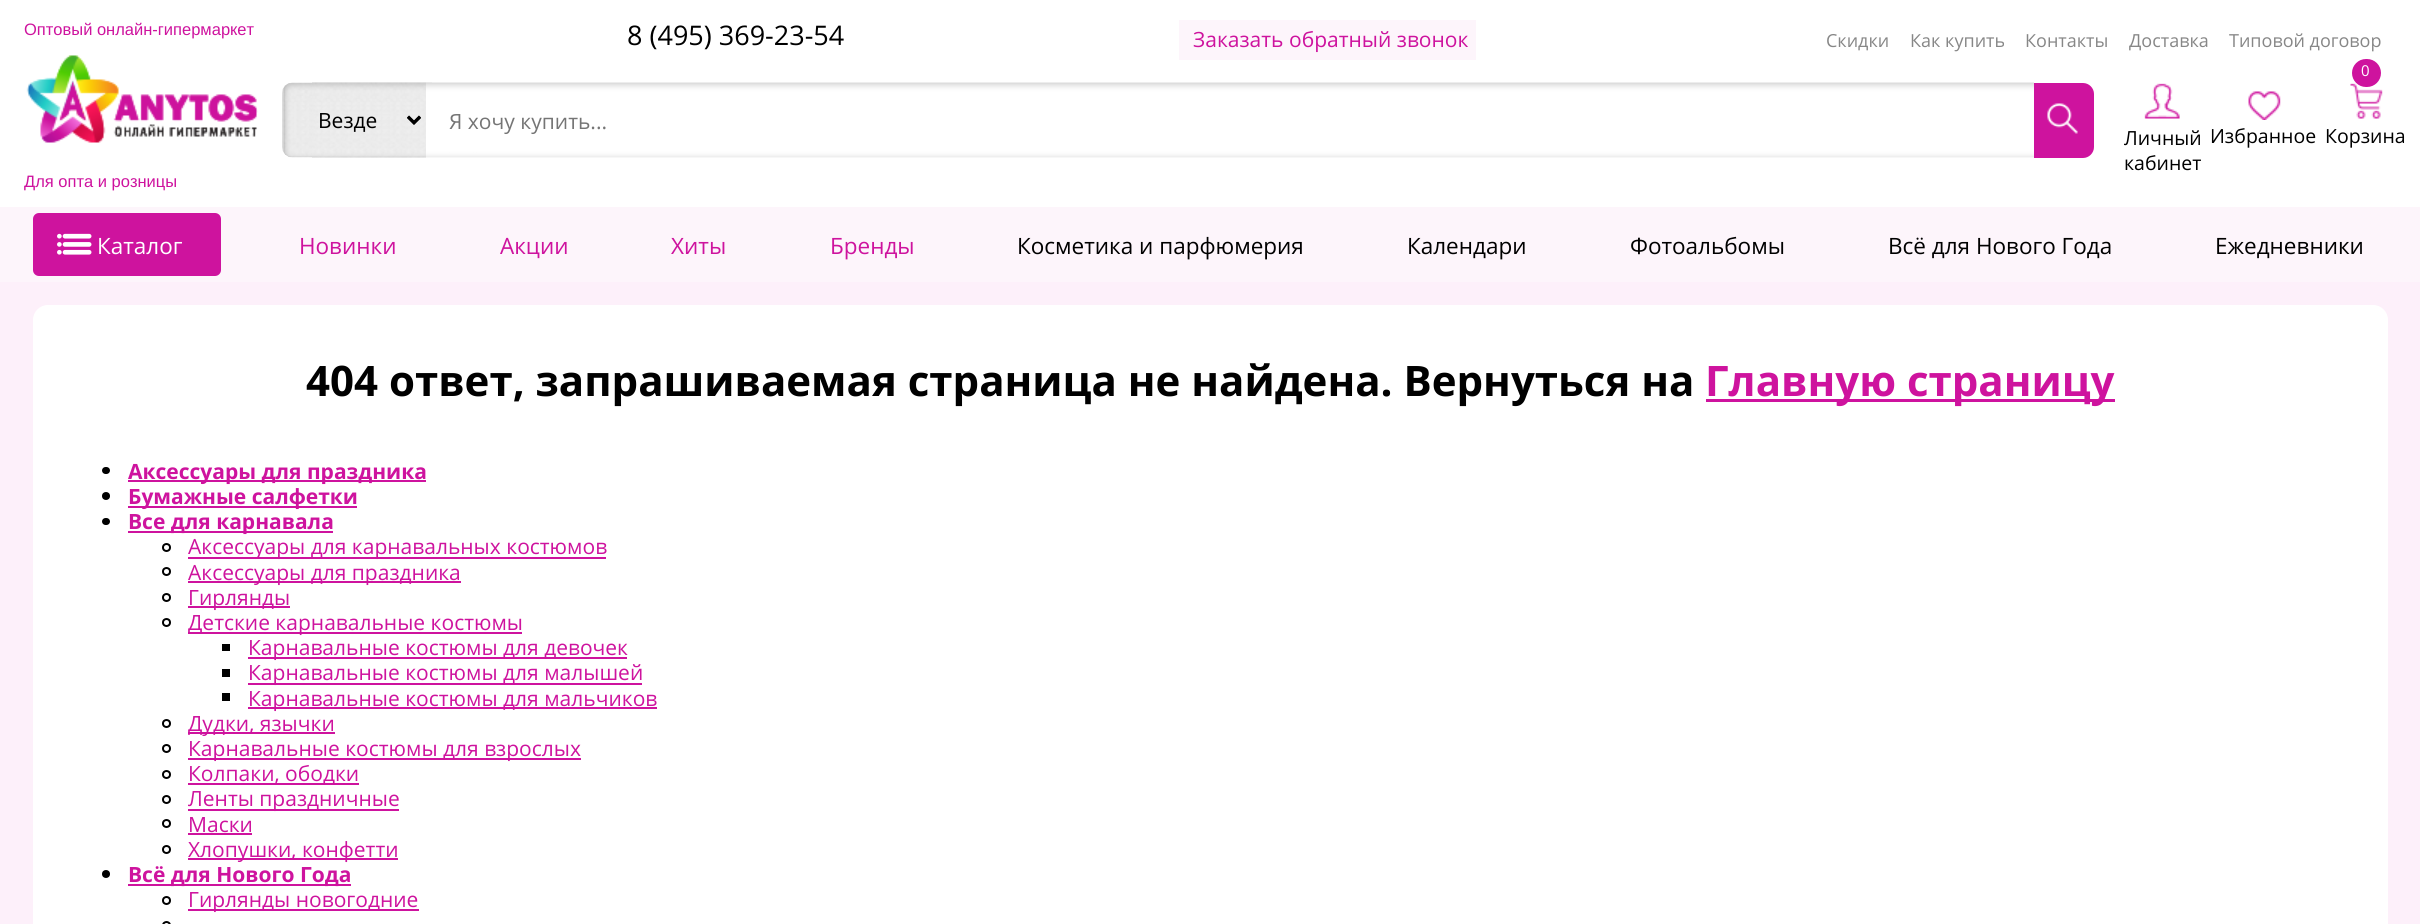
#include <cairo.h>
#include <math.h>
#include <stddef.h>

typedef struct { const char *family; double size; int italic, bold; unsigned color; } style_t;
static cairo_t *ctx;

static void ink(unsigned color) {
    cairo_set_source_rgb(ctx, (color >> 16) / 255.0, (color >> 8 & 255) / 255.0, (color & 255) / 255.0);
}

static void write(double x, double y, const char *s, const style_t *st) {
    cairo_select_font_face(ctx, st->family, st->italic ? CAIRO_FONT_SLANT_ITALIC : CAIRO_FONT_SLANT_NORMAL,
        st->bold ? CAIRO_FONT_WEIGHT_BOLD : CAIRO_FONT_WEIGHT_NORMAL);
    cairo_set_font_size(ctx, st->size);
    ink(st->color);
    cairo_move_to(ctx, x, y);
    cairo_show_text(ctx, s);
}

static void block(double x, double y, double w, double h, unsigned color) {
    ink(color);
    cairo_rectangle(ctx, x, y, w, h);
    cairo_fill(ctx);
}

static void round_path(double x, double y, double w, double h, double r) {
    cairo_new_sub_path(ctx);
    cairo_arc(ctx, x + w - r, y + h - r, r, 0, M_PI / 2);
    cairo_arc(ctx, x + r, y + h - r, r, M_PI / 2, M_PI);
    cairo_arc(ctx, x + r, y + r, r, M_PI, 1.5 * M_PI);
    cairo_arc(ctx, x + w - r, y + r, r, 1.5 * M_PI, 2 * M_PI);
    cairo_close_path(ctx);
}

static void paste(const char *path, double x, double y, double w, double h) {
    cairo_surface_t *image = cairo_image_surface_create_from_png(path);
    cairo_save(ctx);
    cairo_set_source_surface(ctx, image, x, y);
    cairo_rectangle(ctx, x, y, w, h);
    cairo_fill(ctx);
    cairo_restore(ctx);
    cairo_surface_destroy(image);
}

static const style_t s1 = {"Arimo", 16.5, 0, 0, 0xce139e};
static const style_t s2 = {"Open Sans", 27, 0, 0, 0x000000};
static const style_t s3 = {"Open Sans", 21, 0, 0, 0xce139e};
static const style_t s4 = {"Open Sans", 18, 0, 0, 0x878787};
static const style_t s5 = {"Open Sans", 21, 0, 0, 0x000000};
static const style_t s6 = {"Open Sans", 21, 0, 0, 0x757575};
static const style_t s7 = {"Open Sans", 15, 0, 0, 0xffffff};
static const style_t s8 = {"Open Sans", 19.5, 0, 0, 0x000000};
static const style_t s9 = {"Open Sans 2", 22.5, 0, 0, 0xffffff};
static const style_t s10 = {"Open Sans 2", 22.5, 0, 0, 0xce139e};
static const style_t s11 = {"Open Sans 2", 22.5, 0, 0, 0x000000};
static const style_t s12 = {"Open Sans", 42, 0, 1, 0x000000};
static const style_t s13 = {"Open Sans", 42, 0, 1, 0xce139e};
static const style_t s14 = {"Open Sans", 21, 0, 1, 0xce139e};

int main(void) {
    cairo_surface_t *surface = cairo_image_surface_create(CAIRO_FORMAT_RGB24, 2420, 924);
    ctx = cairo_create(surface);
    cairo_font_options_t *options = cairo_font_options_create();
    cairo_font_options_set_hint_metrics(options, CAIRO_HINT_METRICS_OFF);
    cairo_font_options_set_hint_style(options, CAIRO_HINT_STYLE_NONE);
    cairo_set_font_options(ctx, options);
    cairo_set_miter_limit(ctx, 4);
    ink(0xffffff);
    cairo_paint(ctx);
    write(24, 35, "Оптовый онлайн-гипермаркет", &s1);
    paste("pic1.png", 26, 55, 232, 88);
    write(24, 187, "Для опта и розницы", &s1);
    write(627, 45, "8 (495) 369-23-54", &s2);
    block(1179, 20, 297, 40, 0xfdf5fb);
    write(1193, 47, "Заказать обратный звонок", &s3);
    write(1826, 47, "Скидки", &s4);
    write(1910, 47, "Как купить", &s4);
    write(2025, 47, "Контакты", &s4);
    write(2129, 47, "Доставка", &s4);
    write(2229, 47, "Типовой договор", &s4);
    paste("pic2.png", 282, 82, 150, 76);
    paste("pic3.png", 312, 82, 114, 76);
    cairo_new_path(ctx);
    cairo_move_to(ctx, 408, 116.5);
    cairo_line_to(ctx, 414, 122.5);
    cairo_line_to(ctx, 420, 116.5);
    ink(0x000000);
    cairo_set_line_width(ctx, 3);
    cairo_stroke(ctx);
    write(318, 128, "Везде", &s5);
    paste("pic4.png", 426, 82, 1608, 76);
    write(449, 129, "Я хочу купить...", &s6);
    ink(0xce139e);
    cairo_new_path(ctx);
    cairo_move_to(ctx, 2034, 83);
    cairo_line_to(ctx, 2083, 83);
    cairo_curve_to(ctx, 2089, 83, 2094, 88, 2094, 94);
    cairo_line_to(ctx, 2094, 147);
    cairo_curve_to(ctx, 2094, 153, 2089, 158, 2083, 158);
    cairo_line_to(ctx, 2034, 158);
    cairo_close_path(ctx);
    cairo_fill(ctx);
    paste("pic5.png", 2047, 103, 31, 31);
    paste("pic6.png", 2350, 83, 33, 36);
    round_path(2352, 59, 29, 28, 14);
    cairo_fill(ctx);
    write(2361, 76, "0", &s7);
    write(2325, 143, "Корзина", &s8);
    paste("pic7.png", 2144, 83, 36, 36);
    write(2124, 145, "Личный", &s8);
    write(2124, 170, "кабинет", &s8);
    paste("pic8.png", 2248, 91, 33, 29);
    write(2210, 143, "Избранное", &s8);
    block(0, 207, 2420, 75, 0xfdf5fb);
    ink(0xce139e);
    round_path(34, 214, 186, 61, 5);
    cairo_fill_preserve(ctx);
    cairo_set_line_width(ctx, 2);
    cairo_stroke(ctx);
    paste("pic9.png", 57, 233, 35, 22);
    write(97, 254, "Каталог", &s9);
    write(299, 254, "Новинки", &s10);
    write(500, 254, "Акции", &s10);
    write(671, 254, "Хиты", &s10);
    write(830, 254, "Бренды", &s10);
    write(1017, 254, "Косметика и парфюмерия", &s11);
    write(1407, 254, "Календари", &s11);
    write(1630, 254, "Фотоальбомы", &s11);
    write(1888, 254, "Всё для Нового Года", &s11);
    write(2215, 254, "Ежедневники", &s11);
    block(0, 282, 2420, 642, 0xfdf0fa);
    ink(0xffffff);
    round_path(33, 305, 2355, 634, 15);
    cairo_fill(ctx);
    write(306, 396, "404 ответ, запрашиваемая страница не найдена. Вернуться на", &s12);
    block(1706, 399, 409, 3, 0xce139e);
    write(1705, 396, "Главную страницу", &s13);
    ink(0x000000);
    round_path(102, 467, 8, 7, 3.5);
    cairo_fill(ctx);
    block(128, 480, 298, 2, 0xce139e);
    write(128, 479, "Аксессуары для праздника", &s14);
    ink(0x000000);
    cairo_new_path(ctx);
    cairo_arc(ctx, 106, 496, 4, 0, 2 * M_PI);
    cairo_fill(ctx);
    block(128, 506, 229, 2, 0xce139e);
    write(128, 504, "Бумажные салфетки", &s14);
    ink(0x000000);
    round_path(102, 518, 8, 7, 3.5);
    cairo_fill(ctx);
    block(128, 531, 205, 2, 0xce139e);
    write(128, 529, "Все для карнавала", &s14);
    cairo_new_path(ctx);
    cairo_arc(ctx, 166.5, 547.5, 3.5, 0, 2 * M_PI);
    ink(0x000000);
    cairo_stroke(ctx);
    block(188, 557, 418, 2, 0xce139e);
    write(188, 554, "Аксессуары для карнавальных костюмов", &s3);
    cairo_new_path(ctx);
    cairo_arc(ctx, 166.5, 571.5, 3.5, 0, 2 * M_PI);
    ink(0x000000);
    cairo_stroke(ctx);
    block(188, 581, 273, 2, 0xce139e);
    write(188, 580, "Аксессуары для праздника", &s3);
    cairo_new_path(ctx);
    cairo_arc(ctx, 166.5, 597.5, 3.5, 0, 2 * M_PI);
    ink(0x000000);
    cairo_stroke(ctx);
    block(188, 606, 102, 2, 0xce139e);
    write(188, 605, "Гирлянды", &s3);
    cairo_new_path(ctx);
    cairo_arc(ctx, 166.5, 622.5, 3.5, 0, 2 * M_PI);
    ink(0x000000);
    cairo_stroke(ctx);
    block(188, 632, 334, 2, 0xce139e);
    write(188, 630, "Детские карнавальные костюмы", &s3);
    block(222, 644, 8, 7, 0x000000);
    block(248, 657, 379, 2, 0xce139e);
    write(248, 655, "Карнавальные костюмы для девочек", &s3);
    block(222, 669, 8, 8, 0x000000);
    block(248, 683, 394, 2, 0xce139e);
    write(248, 680, "Карнавальные костюмы для малышей", &s3);
    block(222, 693, 8, 8, 0x000000);
    block(248, 707, 409, 2, 0xce139e);
    write(248, 706, "Карнавальные костюмы для мальчиков", &s3);
    cairo_new_path(ctx);
    cairo_arc(ctx, 166.5, 723.5, 3.5, 0, 2 * M_PI);
    ink(0x000000);
    cairo_stroke(ctx);
    block(188, 732, 147, 2, 0xce139e);
    write(188, 731, "Дудки, язычки", &s3);
    cairo_new_path(ctx);
    cairo_arc(ctx, 166.5, 748.5, 3.5, 0, 2 * M_PI);
    ink(0x000000);
    cairo_stroke(ctx);
    block(188, 758, 393, 2, 0xce139e);
    write(188, 756, "Карнавальные костюмы для взрослых", &s3);
    cairo_new_path(ctx);
    cairo_arc(ctx, 166.5, 774.5, 3.5, 0, 2 * M_PI);
    ink(0x000000);
    cairo_stroke(ctx);
    block(188, 783, 171, 2, 0xce139e);
    write(188, 781, "Колпаки, ободки", &s3);
    cairo_new_path(ctx);
    cairo_arc(ctx, 166.5, 799.5, 3.5, 0, 2 * M_PI);
    ink(0x000000);
    cairo_stroke(ctx);
    block(188, 809, 211, 2, 0xce139e);
    write(188, 806, "Ленты праздничные", &s3);
    cairo_new_path(ctx);
    cairo_arc(ctx, 166.5, 823.5, 3.5, 0, 2 * M_PI);
    ink(0x000000);
    cairo_stroke(ctx);
    write(188, 832, "Маски", &s3);
    block(188, 833, 64, 2, 0xce139e);
    cairo_new_path(ctx);
    cairo_arc(ctx, 166.5, 849.5, 3.5, 0, 2 * M_PI);
    ink(0x000000);
    cairo_stroke(ctx);
    block(188, 858, 210, 2, 0xce139e);
    write(188, 857, "Хлопушки, конфетти", &s3);
    ink(0x000000);
    cairo_new_path(ctx);
    cairo_arc(ctx, 106, 874, 4, 0, 2 * M_PI);
    cairo_fill(ctx);
    block(128, 884, 223, 2, 0xce139e);
    write(128, 882, "Всё для Нового Года", &s14);
    cairo_new_path(ctx);
    cairo_arc(ctx, 166.5, 900.5, 3.5, 0, 2 * M_PI);
    ink(0x000000);
    cairo_stroke(ctx);
    block(188, 909, 231, 2, 0xce139e);
    write(188, 907, "Гирлянды новогодние", &s3);
    cairo_new_path(ctx);
    cairo_arc(ctx, 166.5, 925.5, 3.5, 0, 2 * M_PI);
    ink(0x000000);
    cairo_stroke(ctx);
    cairo_surface_write_to_png(surface, "screenshot.png");
    cairo_font_options_destroy(options);
    cairo_destroy(ctx);
    cairo_surface_destroy(surface);
    return 0;
}
